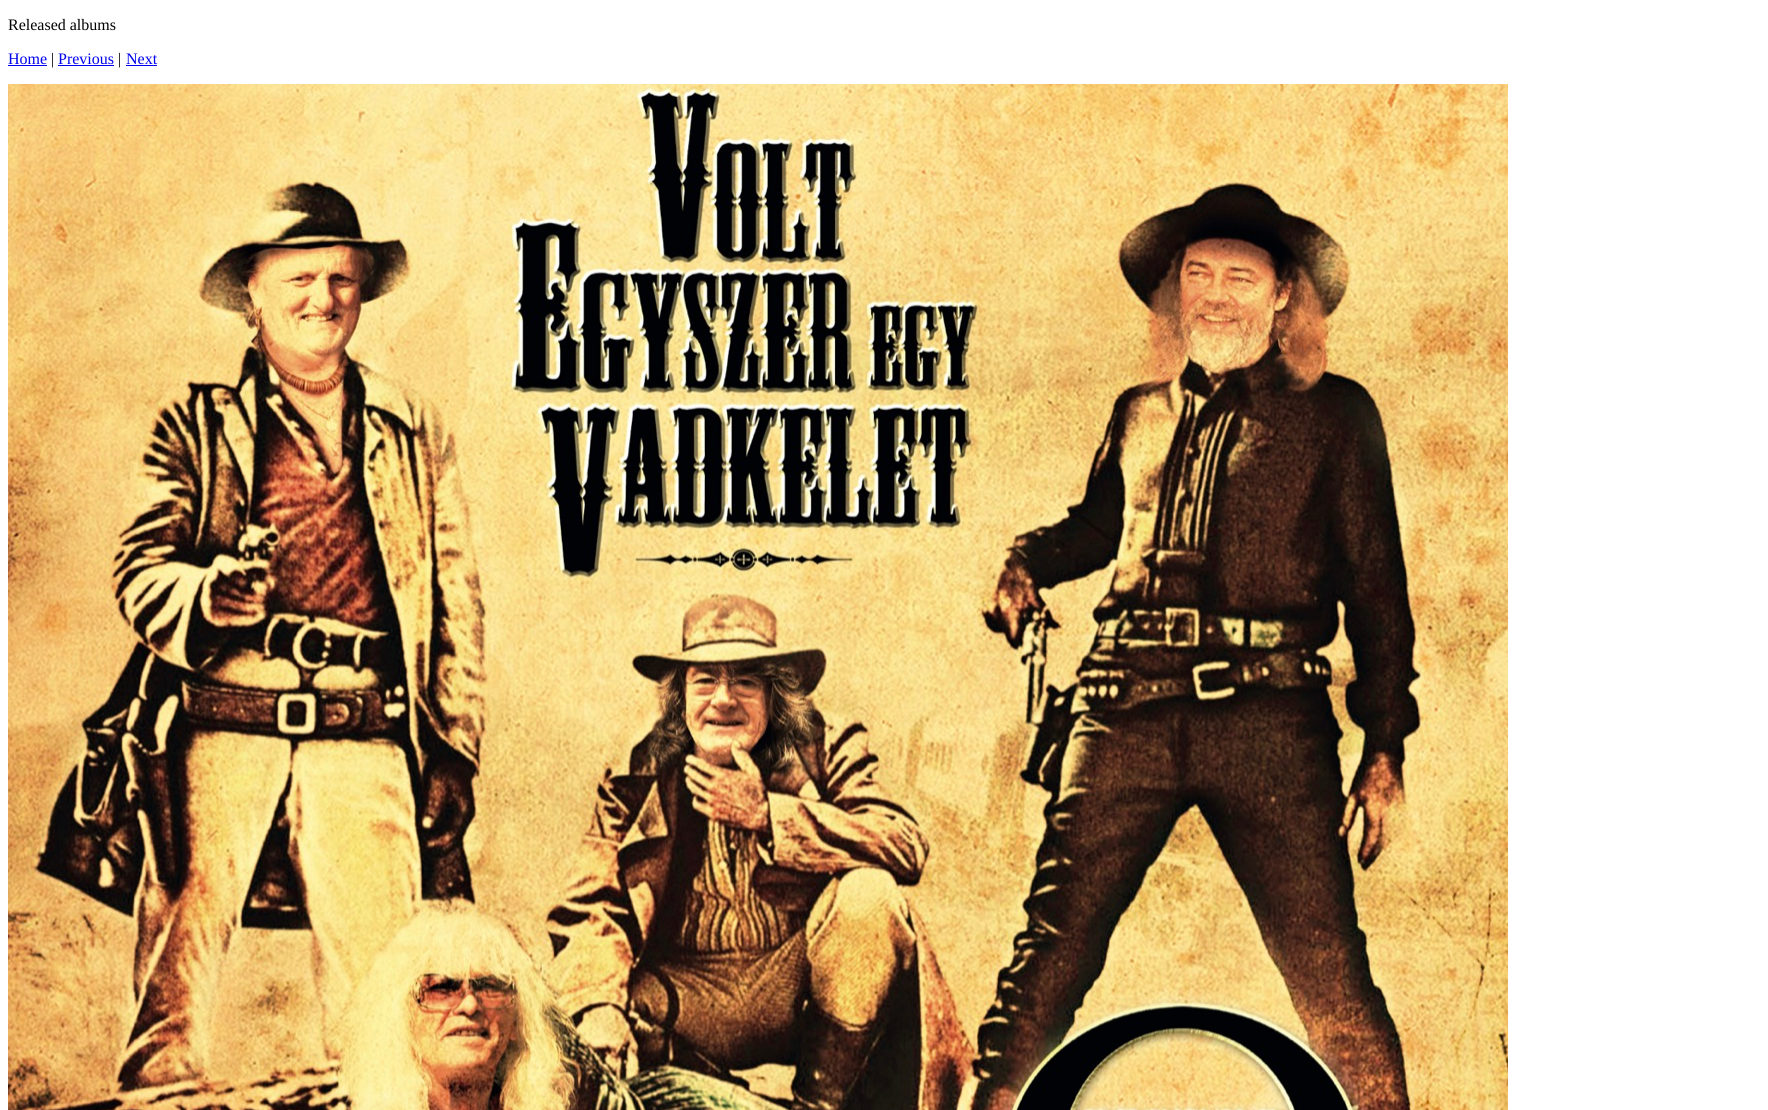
#include <cairo.h>
#include <math.h>
#include <stddef.h>

typedef struct { const char *family; double size; int italic, bold; unsigned color; } style_t;
static cairo_t *ctx;

static void ink(unsigned color) {
    cairo_set_source_rgb(ctx, (color >> 16) / 255.0, (color >> 8 & 255) / 255.0, (color & 255) / 255.0);
}

static void write(double x, double y, const char *s, const style_t *st) {
    cairo_select_font_face(ctx, st->family, st->italic ? CAIRO_FONT_SLANT_ITALIC : CAIRO_FONT_SLANT_NORMAL,
        st->bold ? CAIRO_FONT_WEIGHT_BOLD : CAIRO_FONT_WEIGHT_NORMAL);
    cairo_set_font_size(ctx, st->size);
    ink(st->color);
    cairo_move_to(ctx, x, y);
    cairo_show_text(ctx, s);
}

static void block(double x, double y, double w, double h, unsigned color) {
    ink(color);
    cairo_rectangle(ctx, x, y, w, h);
    cairo_fill(ctx);
}

static void paste(const char *path, double x, double y, double w, double h) {
    cairo_surface_t *image = cairo_image_surface_create_from_png(path);
    cairo_save(ctx);
    cairo_set_source_surface(ctx, image, x, y);
    cairo_rectangle(ctx, x, y, w, h);
    cairo_fill(ctx);
    cairo_restore(ctx);
    cairo_surface_destroy(image);
}

static const style_t s1 = {"Liberation Serif", 16, 0, 0, 0x000000};
static const style_t s2 = {"Liberation Serif", 16, 0, 0, 0x0000ee};

int main(void) {
    cairo_surface_t *surface = cairo_image_surface_create(CAIRO_FORMAT_RGB24, 1768, 1110);
    ctx = cairo_create(surface);
    cairo_font_options_t *options = cairo_font_options_create();
    cairo_font_options_set_hint_metrics(options, CAIRO_HINT_METRICS_OFF);
    cairo_font_options_set_hint_style(options, CAIRO_HINT_STYLE_NONE);
    cairo_set_font_options(ctx, options);
    cairo_set_miter_limit(ctx, 4);
    ink(0xffffff);
    cairo_paint(ctx);
    write(8, 30, "Released albums", &s1);
    write(8, 64, "Home", &s2);
    block(8, 65, 39, 1, 0x0000ee);
    write(51, 64, "|", &s1);
    write(58, 64, "Previous", &s2);
    block(58, 65, 56, 1, 0x0000ee);
    write(118, 64, "|", &s1);
    write(126, 64, "Next", &s2);
    block(126, 65, 31, 1, 0x0000ee);
    paste("pic1.png", 8, 84, 1500, 1026);
    cairo_surface_write_to_png(surface, "screenshot.png");
    cairo_font_options_destroy(options);
    cairo_destroy(ctx);
    cairo_surface_destroy(surface);
    return 0;
}
